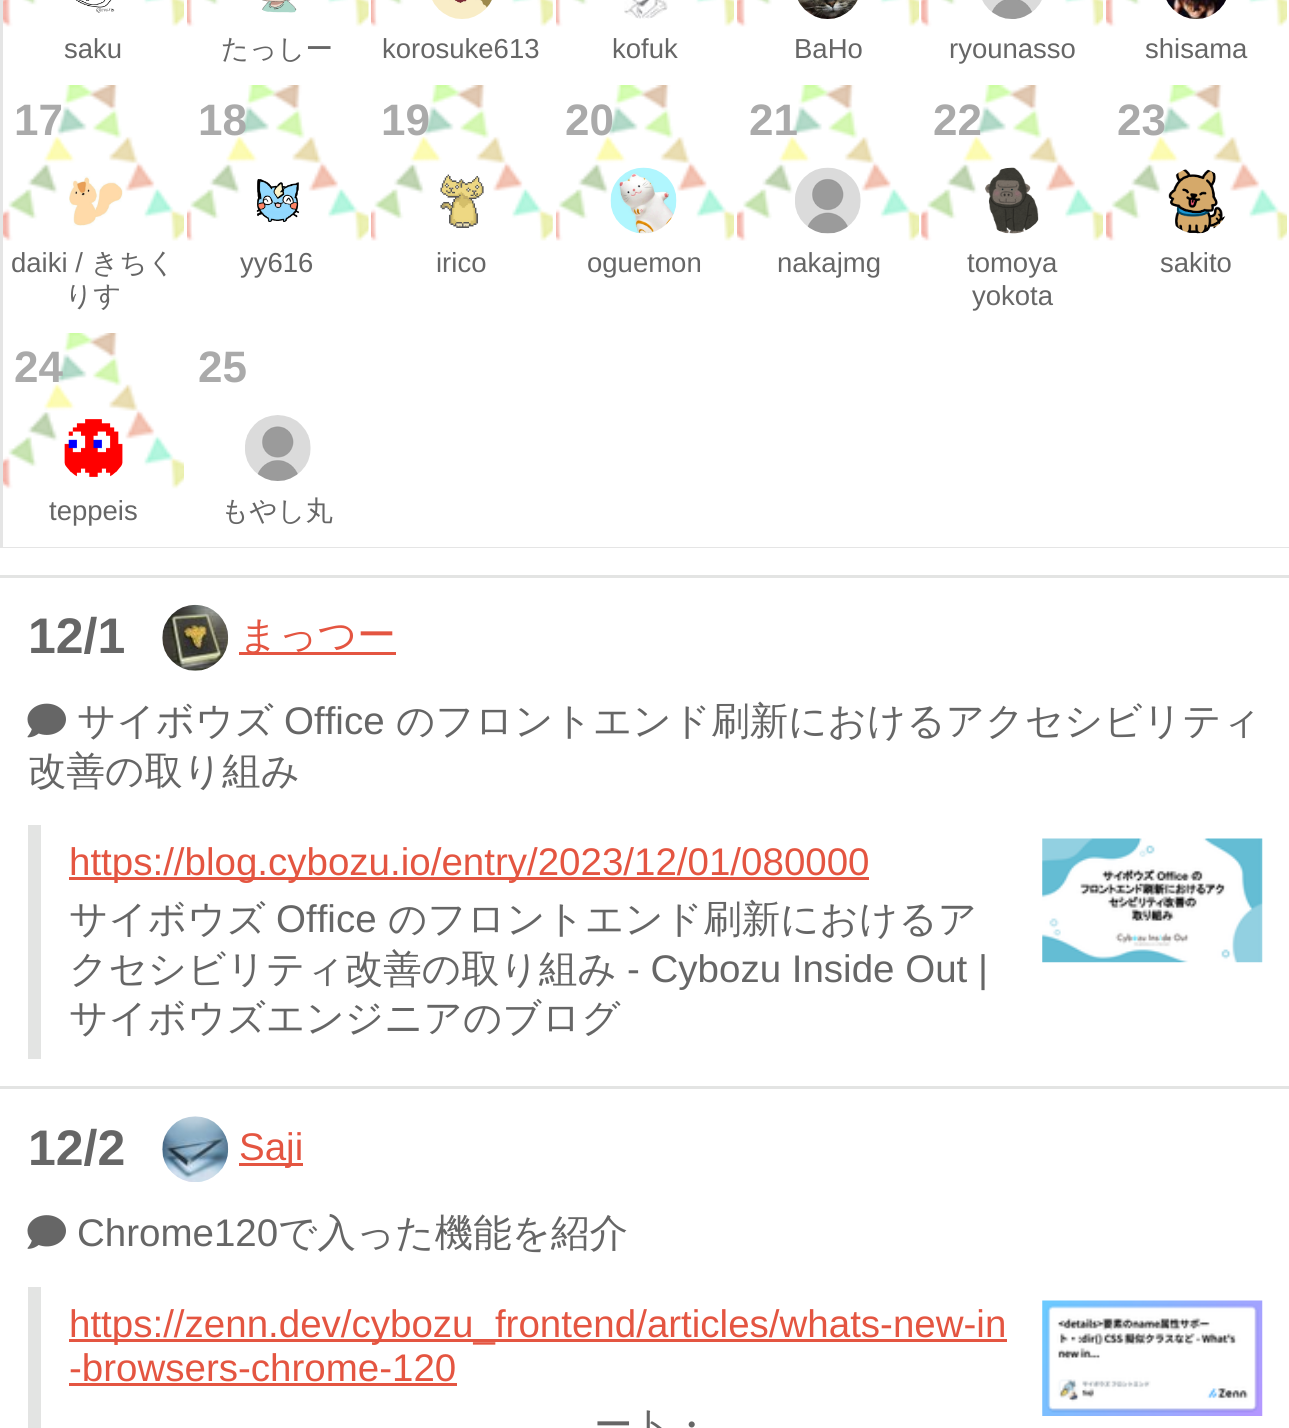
#include <cairo.h>
#include <math.h>
#include <stddef.h>

typedef struct { const char *family; double size; int italic, bold; unsigned color; } style_t;
static cairo_t *ctx;

static void ink(unsigned color) {
    cairo_set_source_rgb(ctx, (color >> 16) / 255.0, (color >> 8 & 255) / 255.0, (color & 255) / 255.0);
}

static void write(double x, double y, const char *s, const style_t *st) {
    cairo_select_font_face(ctx, st->family, st->italic ? CAIRO_FONT_SLANT_ITALIC : CAIRO_FONT_SLANT_NORMAL,
        st->bold ? CAIRO_FONT_WEIGHT_BOLD : CAIRO_FONT_WEIGHT_NORMAL);
    cairo_set_font_size(ctx, st->size);
    ink(st->color);
    cairo_move_to(ctx, x, y);
    cairo_show_text(ctx, s);
}

static void block(double x, double y, double w, double h, unsigned color) {
    ink(color);
    cairo_rectangle(ctx, x, y, w, h);
    cairo_fill(ctx);
}

static void paste(const char *path, double x, double y, double w, double h) {
    cairo_surface_t *image = cairo_image_surface_create_from_png(path);
    cairo_save(ctx);
    cairo_set_source_surface(ctx, image, x, y);
    cairo_rectangle(ctx, x, y, w, h);
    cairo_fill(ctx);
    cairo_restore(ctx);
    cairo_surface_destroy(image);
}

static const style_t s1 = {"Liberation Sans", 27.5, 0, 0, 0x666666};
static const style_t s2 = {"WenQuanYi Zen Hei Medium", 27.5, 0, 0, 0x666666};
static const style_t s3 = {"Liberation Sans", 44, 0, 1, 0xaaaaaa};
static const style_t s4 = {"Liberation Sans", 50, 0, 1, 0x666666};
static const style_t s5 = {"WenQuanYi Zen Hei Medium", 38.5, 0, 0, 0xe45541};
static const style_t s6 = {"WenQuanYi Zen Hei Medium", 38.5, 0, 0, 0x666666};
static const style_t s7 = {"Liberation Sans", 38.5, 0, 0, 0x666666};
static const style_t s8 = {"Liberation Sans", 38.5, 0, 0, 0xe45541};

int main(void) {
    cairo_surface_t *surface = cairo_image_surface_create(CAIRO_FORMAT_RGB24, 1289, 1428);
    ctx = cairo_create(surface);
    cairo_font_options_t *options = cairo_font_options_create();
    cairo_font_options_set_hint_metrics(options, CAIRO_HINT_METRICS_OFF);
    cairo_font_options_set_hint_style(options, CAIRO_HINT_STYLE_NONE);
    cairo_set_font_options(ctx, options);
    cairo_set_miter_limit(ctx, 4);
    ink(0xffffff);
    cairo_paint(ctx);
    paste("pic1.png", 3, 0, 181, 27);
    paste("pic2.png", 76, 0, 39, 13);
    write(64, 58, "saku", &s1);
    paste("pic3.png", 187, 0, 182, 27);
    paste("pic4.png", 262, 0, 35, 13);
    write(221, 58, "たっしー", &s2);
    paste("pic5.png", 371, 0, 182, 27);
    paste("pic6.png", 432, 0, 60, 19);
    write(382, 58, "korosuke613", &s1);
    paste("pic7.png", 556, 0, 178, 27);
    paste("pic8.png", 624, 0, 44, 19);
    write(612, 58, "kofuk", &s1);
    paste("pic9.png", 737, 0, 182, 27);
    paste("pic10.png", 798, 0, 60, 19);
    write(794, 58, "BaHo", &s1);
    paste("pic11.png", 921, 0, 182, 27);
    paste("pic12.png", 982, 0, 60, 19);
    write(949, 58, "ryounasso", &s1);
    paste("pic13.png", 1106, 0, 181, 27);
    paste("pic14.png", 1166, 0, 60, 19);
    write(1145, 58, "shisama", &s1);
    paste("pic15.png", 3, 85, 181, 156);
    write(14, 135, "17", &s3);
    paste("pic16.png", 69, 176, 54, 50);
    write(11, 272, "daiki /", &s1);
    write(91, 272, "きちく", &s2);
    write(65, 305, "りす", &s2);
    paste("pic17.png", 187, 85, 182, 156);
    write(198, 135, "18", &s3);
    paste("pic18.png", 256, 179, 44, 43);
    write(240, 272, "yy616", &s1);
    paste("pic19.png", 371, 85, 182, 156);
    write(381, 135, "19", &s3);
    paste("pic20.png", 440, 174, 44, 54);
    write(436, 272, "irico", &s1);
    paste("pic21.png", 556, 85, 178, 156);
    write(565, 135, "20", &s3);
    paste("pic22.png", 610, 167, 67, 67);
    write(587, 272, "oguemon", &s1);
    paste("pic23.png", 737, 85, 182, 156);
    write(749, 135, "21", &s3);
    paste("pic24.png", 795, 167, 66, 67);
    write(777, 272, "nakajmg", &s1);
    paste("pic25.png", 921, 85, 182, 156);
    write(933, 135, "22", &s3);
    paste("pic26.png", 985, 167, 54, 67);
    write(967, 272, "tomoya", &s1);
    write(972, 305, "yokota", &s1);
    paste("pic27.png", 1106, 85, 181, 156);
    write(1117, 135, "23", &s3);
    paste("pic28.png", 1168, 169, 58, 65);
    write(1160, 272, "sakito", &s1);
    block(0, 0, 3, 547, 0xe5e5e5);
    paste("pic29.png", 3, 333, 181, 156);
    write(14, 382, "24", &s3);
    paste("pic30.png", 64, 419, 59, 58);
    write(49, 520, "teppeis", &s1);
    write(198, 382, "25", &s3);
    paste("pic31.png", 245, 415, 66, 66);
    write(221, 520, "もやし丸", &s2);
    block(0, 547, 1289, 1, 0xe5e5e5);
    block(0, 575, 1289, 3, 0xe3e4e3);
    write(28, 653, "12/1", &s4);
    paste("pic32.png", 162, 604, 67, 67);
    block(239, 652, 157, 3, 0xe45541);
    write(239, 648, "まっつー", &s5);
    paste("pic33.png", 27, 703, 39, 35);
    write(77, 734, "サイボウズ", &s6);
    write(284, 734, "Office", &s7);
    write(396, 734, "のフロントエンド刷新におけるアクセシビリティ", &s6);
    write(28, 784, "改善の取り組み", &s6);
    block(28, 825, 13, 234, 0xe3e4e3);
    block(69, 877, 800, 3, 0xe45541);
    write(69, 875, "https://blog.cybozu.io/entry/2023/12/01/080000", &s8);
    write(69, 932, "サイボウズ", &s6);
    write(276, 932, "Office", &s7);
    write(388, 932, "のフロントエンド刷新におけるア", &s6);
    write(69, 982, "クセシビリティ改善の取り組み", &s6);
    write(627, 982, "- Cybozu Inside Out |", &s7);
    write(69, 1031, "サイボウズエンジニアのブログ", &s6);
    paste("pic34.png", 1042, 838, 221, 125);
    block(0, 1086, 1289, 3, 0xe3e4e3);
    write(28, 1165, "12/2", &s4);
    paste("pic35.png", 162, 1116, 67, 66);
    block(239, 1163, 64, 3, 0xe45541);
    write(239, 1160, "Saji", &s8);
    paste("pic36.png", 27, 1215, 39, 34);
    write(77, 1246, "Chrome120", &s7);
    write(278, 1246, "で入った機能を紹介", &s6);
    block(28, 1287, 13, 141, 0xe3e4e3);
    block(69, 1339, 938, 3, 0xe45541);
    write(69, 1337, "https://zenn.dev/cybozu_frontend/articles/whats-new-in", &s8);
    write(69, 1381, "-browsers-chrome-120", &s8);
    block(69, 1383, 388, 3, 0xe45541);
    write(594, 1438, "ート・", &s6);
    paste("pic37.png", 1042, 1300, 221, 116);
    cairo_surface_write_to_png(surface, "screenshot.png");
    cairo_font_options_destroy(options);
    cairo_destroy(ctx);
    cairo_surface_destroy(surface);
    return 0;
}
